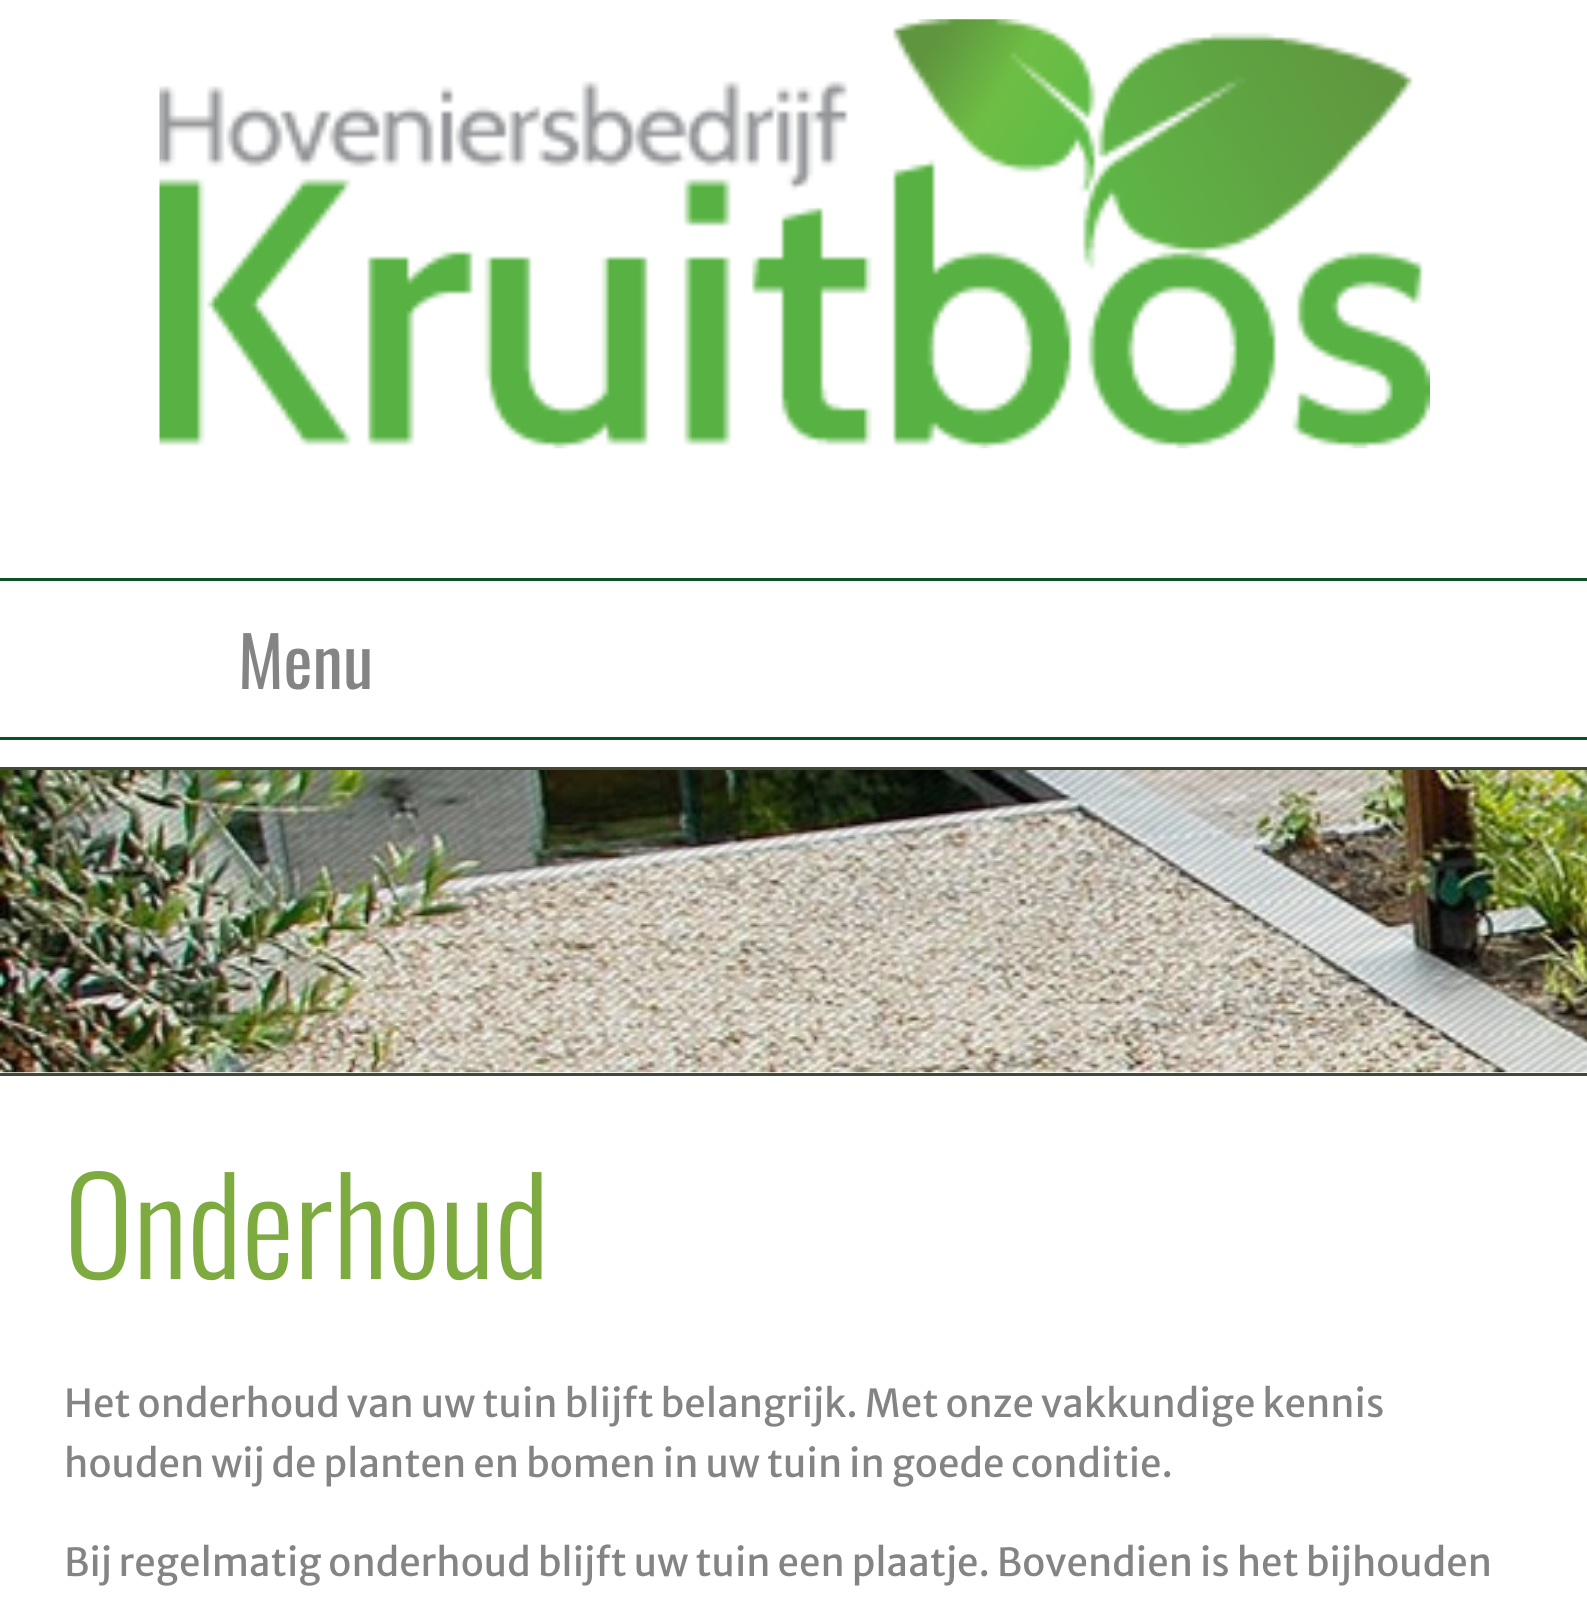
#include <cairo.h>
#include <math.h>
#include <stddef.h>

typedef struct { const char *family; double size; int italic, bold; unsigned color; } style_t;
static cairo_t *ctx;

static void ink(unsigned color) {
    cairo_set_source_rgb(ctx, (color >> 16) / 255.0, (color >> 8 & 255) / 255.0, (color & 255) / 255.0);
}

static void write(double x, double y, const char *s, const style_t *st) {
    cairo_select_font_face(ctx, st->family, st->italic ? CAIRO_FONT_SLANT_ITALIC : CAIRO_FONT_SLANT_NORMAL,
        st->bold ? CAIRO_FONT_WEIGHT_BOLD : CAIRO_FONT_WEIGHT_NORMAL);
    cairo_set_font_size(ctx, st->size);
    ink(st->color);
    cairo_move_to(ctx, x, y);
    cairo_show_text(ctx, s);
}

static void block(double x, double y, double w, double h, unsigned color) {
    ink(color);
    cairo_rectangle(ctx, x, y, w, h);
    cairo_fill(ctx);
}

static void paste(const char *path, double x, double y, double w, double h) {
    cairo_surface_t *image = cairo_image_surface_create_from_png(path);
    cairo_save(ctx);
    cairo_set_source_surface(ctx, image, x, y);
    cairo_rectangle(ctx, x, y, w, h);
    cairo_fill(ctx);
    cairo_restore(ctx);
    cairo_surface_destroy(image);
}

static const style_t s1 = {"Oswald", 69, 0, 0, 0x848484};
static const style_t s2 = {"Oswald Light", 132, 0, 0, 0x7eab40};
static const style_t s3 = {"Merriweather Sans", 38.5, 0, 0, 0x848484};

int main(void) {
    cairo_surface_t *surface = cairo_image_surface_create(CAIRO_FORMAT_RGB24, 1587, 1620);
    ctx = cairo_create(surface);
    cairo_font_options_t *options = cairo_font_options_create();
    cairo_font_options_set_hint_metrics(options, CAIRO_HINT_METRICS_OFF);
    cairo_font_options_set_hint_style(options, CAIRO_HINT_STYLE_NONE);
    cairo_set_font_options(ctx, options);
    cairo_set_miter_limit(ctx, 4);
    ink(0xffffff);
    cairo_paint(ctx);
    paste("pic1.png", 159, 19, 1271, 430);
    block(0, 578, 1587, 3, 0x095127);
    block(0, 737, 1587, 3, 0x095127);
    write(238, 689, "Menu", &s1);
    block(0, 767, 1587, 3, 0x414838);
    block(0, 1073, 1587, 3, 0x414838);
    paste("pic2.png", 0, 770, 1587, 303);
    paste("pic3.png", 0, 770, 1587, 303);
    write(64, 1279, "Onderhoud", &s2);
    write(64, 1417, "Het onderhoud van uw tuin blijft belangrijk. Met onze vakkundige kennis", &s3);
    write(64, 1477, "houden wij de planten en bomen in uw tuin in goede conditie.", &s3);
    write(64, 1576, "Bij regelmatig onderhoud blijft uw tuin een plaatje. Bovendien is het bijhouden", &s3);
    cairo_surface_write_to_png(surface, "screenshot.png");
    cairo_font_options_destroy(options);
    cairo_destroy(ctx);
    cairo_surface_destroy(surface);
    return 0;
}
